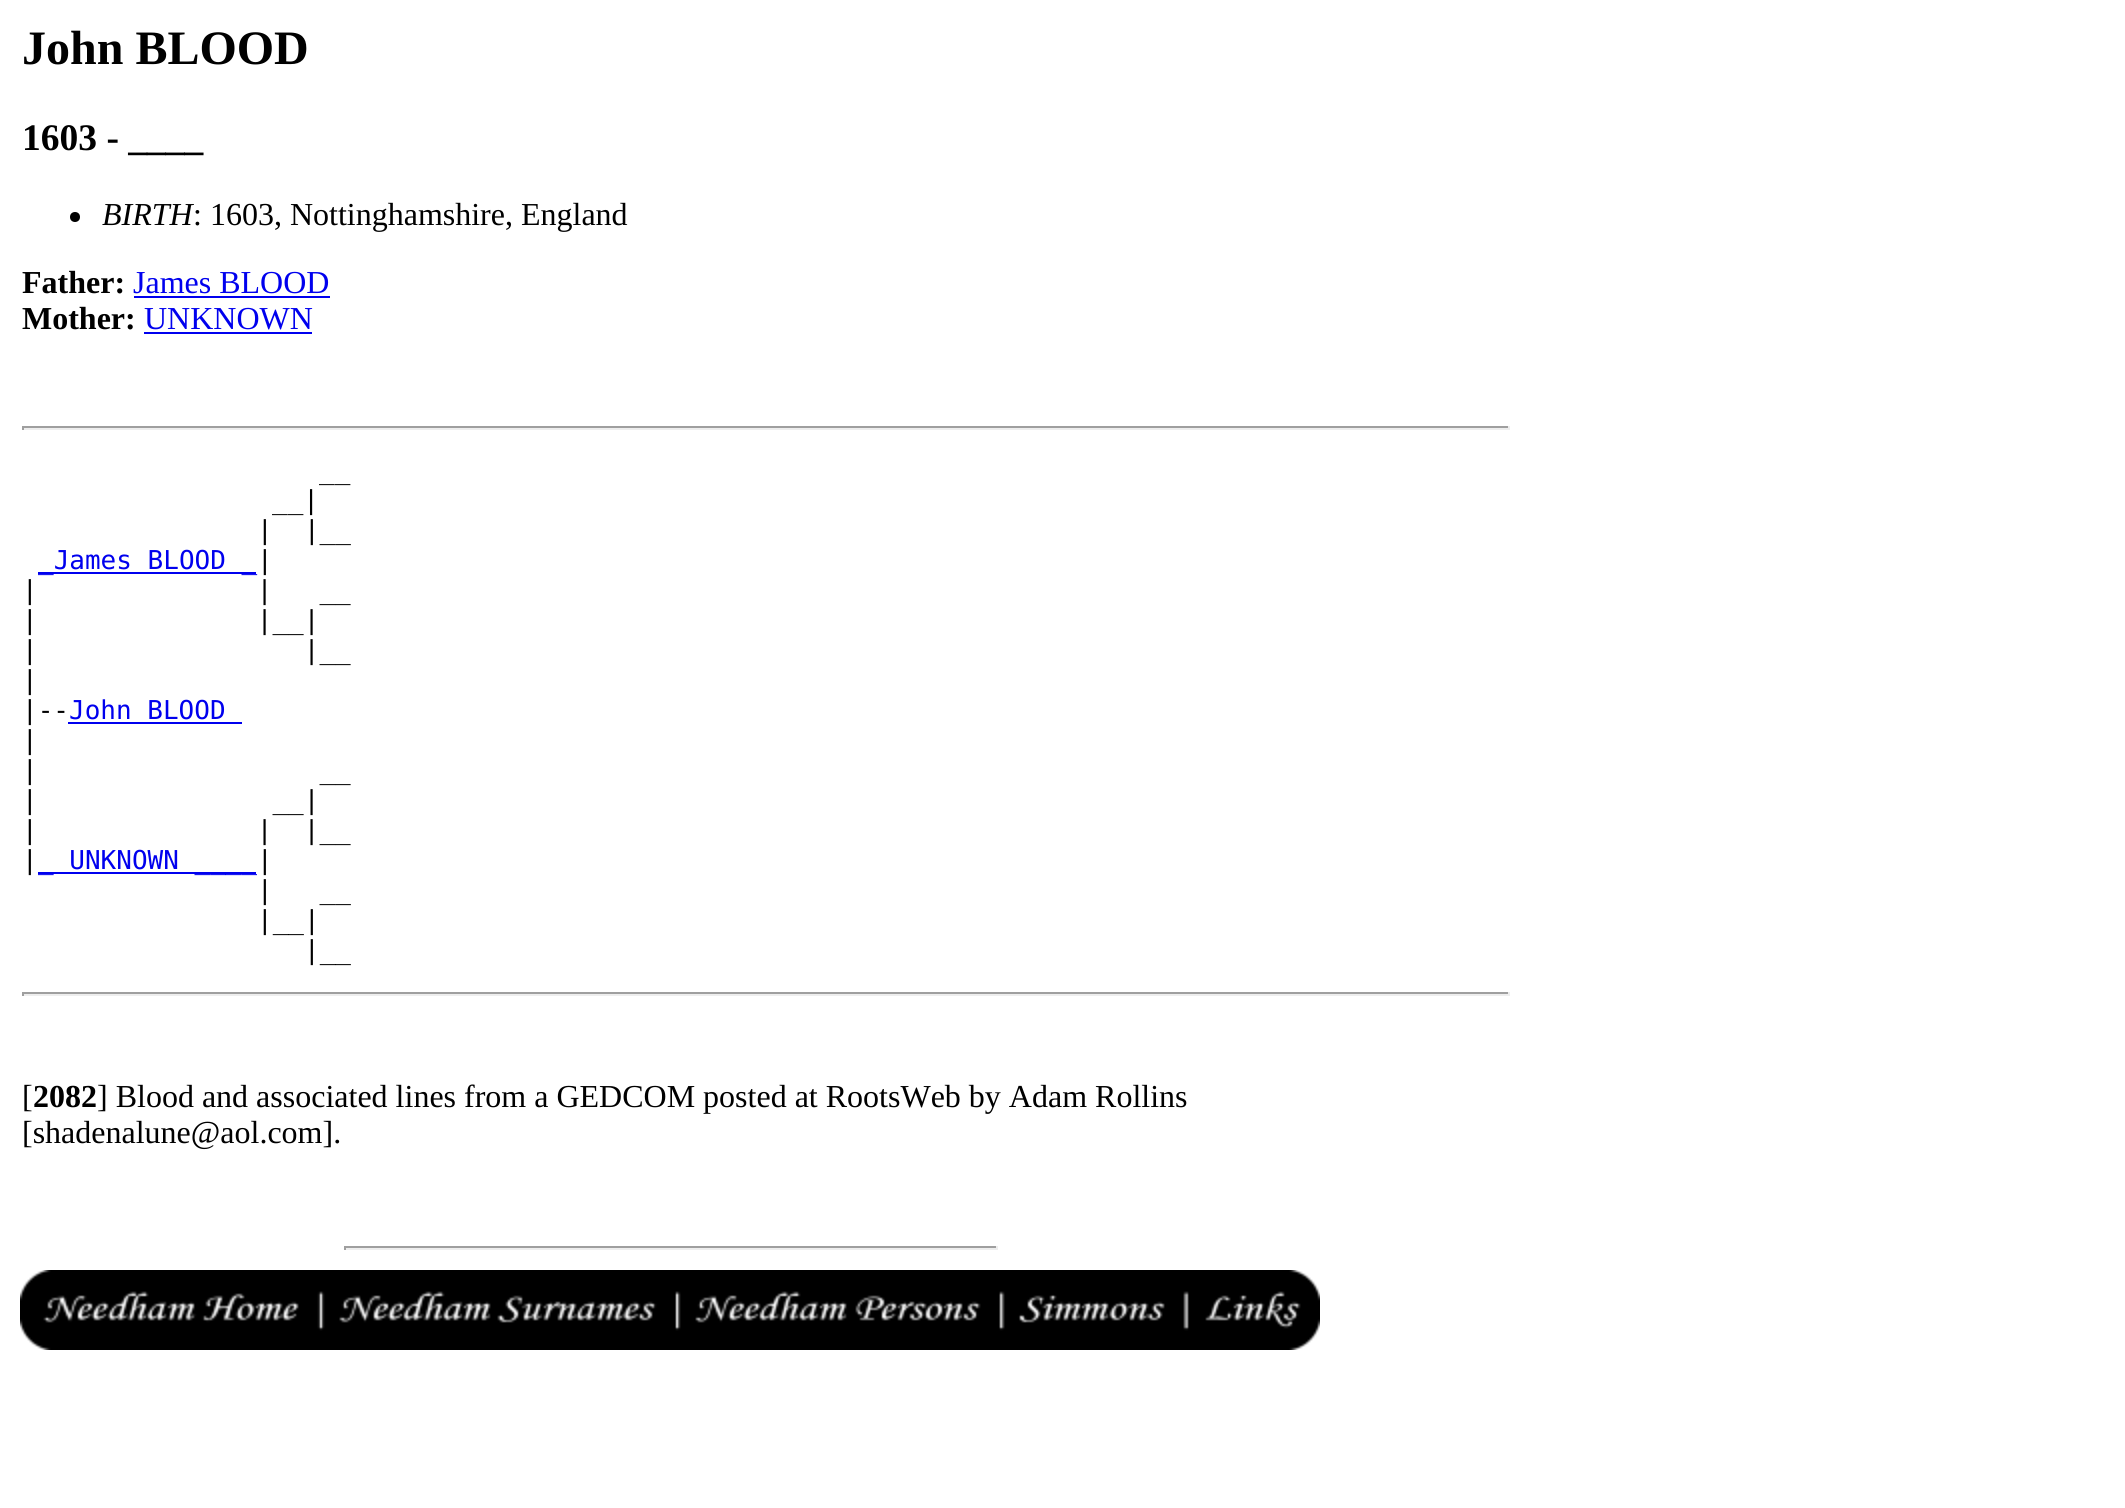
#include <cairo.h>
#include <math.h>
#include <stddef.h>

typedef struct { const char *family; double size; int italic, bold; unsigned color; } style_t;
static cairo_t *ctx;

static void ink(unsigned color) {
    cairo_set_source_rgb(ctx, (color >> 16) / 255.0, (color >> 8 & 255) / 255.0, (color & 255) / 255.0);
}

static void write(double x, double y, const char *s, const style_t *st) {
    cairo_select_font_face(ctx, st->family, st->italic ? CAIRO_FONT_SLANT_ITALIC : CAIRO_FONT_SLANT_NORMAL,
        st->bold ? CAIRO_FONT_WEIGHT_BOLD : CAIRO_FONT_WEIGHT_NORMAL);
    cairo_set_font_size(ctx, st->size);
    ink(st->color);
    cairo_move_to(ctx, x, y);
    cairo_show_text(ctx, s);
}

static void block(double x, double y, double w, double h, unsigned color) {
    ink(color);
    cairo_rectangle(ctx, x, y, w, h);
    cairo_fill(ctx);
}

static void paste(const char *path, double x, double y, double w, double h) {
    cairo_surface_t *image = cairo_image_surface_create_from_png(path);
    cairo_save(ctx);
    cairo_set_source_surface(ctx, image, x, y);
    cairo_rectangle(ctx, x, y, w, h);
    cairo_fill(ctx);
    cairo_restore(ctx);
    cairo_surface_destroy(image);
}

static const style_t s1 = {"Liberation Serif", 48, 0, 1, 0x000000};
static const style_t s2 = {"Liberation Serif", 37.5, 0, 1, 0x000000};
static const style_t s3 = {"Liberation Serif", 32, 1, 0, 0x000000};
static const style_t s4 = {"Liberation Serif", 32, 0, 0, 0x000000};
static const style_t s5 = {"Liberation Serif", 32, 0, 1, 0x000000};
static const style_t s6 = {"Liberation Serif", 32, 0, 0, 0x0000ee};
static const style_t s7 = {"DejaVu Sans Mono", 26, 0, 0, 0x000000};
static const style_t s8 = {"DejaVu Sans Mono", 26, 0, 0, 0x0000ee};

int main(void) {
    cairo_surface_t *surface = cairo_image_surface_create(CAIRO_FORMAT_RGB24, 2125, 1508);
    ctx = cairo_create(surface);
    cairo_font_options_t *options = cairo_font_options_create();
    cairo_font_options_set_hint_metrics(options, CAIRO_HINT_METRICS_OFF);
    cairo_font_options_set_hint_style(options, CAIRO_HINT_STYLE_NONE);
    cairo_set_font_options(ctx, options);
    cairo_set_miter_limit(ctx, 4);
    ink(0xffffff);
    cairo_paint(ctx);
    write(22, 64, "John BLOOD", &s1);
    write(22, 150, "1603 - ____", &s2);
    cairo_new_path(ctx);
    cairo_arc(ctx, 75, 217, 5, 0, 2 * M_PI);
    cairo_fill(ctx);
    write(102, 225, "BIRTH", &s3);
    write(193, 225, ": 1603, Nottinghamshire, England", &s4);
    write(22, 293, "Father:", &s5);
    write(133, 293, "James BLOOD", &s6);
    block(134, 296, 196, 2, 0x0000ee);
    write(22, 329, "Mother:", &s5);
    write(144, 329, "UNKNOWN", &s6);
    block(144, 332, 168, 2, 0x0000ee);
    block(22, 426, 1488, 2, 0x9f9f9f);
    block(1508, 426, 2, 4, 0xeeeeee);
    block(22, 428, 1488, 2, 0xeeeeee);
    block(22, 426, 2, 4, 0x9f9f9f);
    write(319, 479, "__", &s7);
    write(272, 509, "__|", &s7);
    write(257, 539, "|  |__", &s7);
    block(38, 572, 218, 2, 0x0000ee);
    write(38, 569, "_James BLOOD _", &s8);
    write(257, 569, "|", &s7);
    write(22, 599, "|              |   __", &s7);
    write(22, 629, "|              |__|", &s7);
    write(22, 659, "|                 |__", &s7);
    write(22, 689, "|", &s7);
    write(22, 719, "|--", &s7);
    write(69, 719, "John BLOOD", &s8);
    block(68, 722, 174, 2, 0x0000ee);
    write(22, 749, "|", &s7);
    write(22, 779, "|                  __", &s7);
    write(22, 809, "|               __|", &s7);
    write(22, 839, "|              |  |__", &s7);
    write(22, 869, "|", &s7);
    block(38, 872, 218, 2, 0x0000ee);
    write(38, 869, "_ UNKNOWN ____", &s8);
    write(257, 869, "|", &s7);
    write(257, 899, "|   __", &s7);
    write(257, 929, "|__|", &s7);
    write(304, 959, "|__", &s7);
    block(22, 992, 1488, 2, 0x9f9f9f);
    block(1508, 992, 2, 4, 0xeeeeee);
    block(22, 994, 1488, 2, 0xeeeeee);
    block(22, 992, 2, 4, 0x9f9f9f);
    write(22, 1107, "[", &s4);
    write(33, 1107, "2082", &s5);
    write(97, 1107, "] Blood and associated lines from a GEDCOM posted at RootsWeb by Adam Rollins", &s4);
    write(22, 1143, "[shadenalune@aol.com].", &s4);
    block(344, 1246, 654, 2, 0x9f9f9f);
    block(996, 1246, 2, 4, 0xeeeeee);
    block(344, 1248, 654, 2, 0xeeeeee);
    block(344, 1246, 2, 4, 0x9f9f9f);
    paste("pic1.png", 20, 1270, 1300, 80);
    cairo_surface_write_to_png(surface, "screenshot.png");
    cairo_font_options_destroy(options);
    cairo_destroy(ctx);
    cairo_surface_destroy(surface);
    return 0;
}
